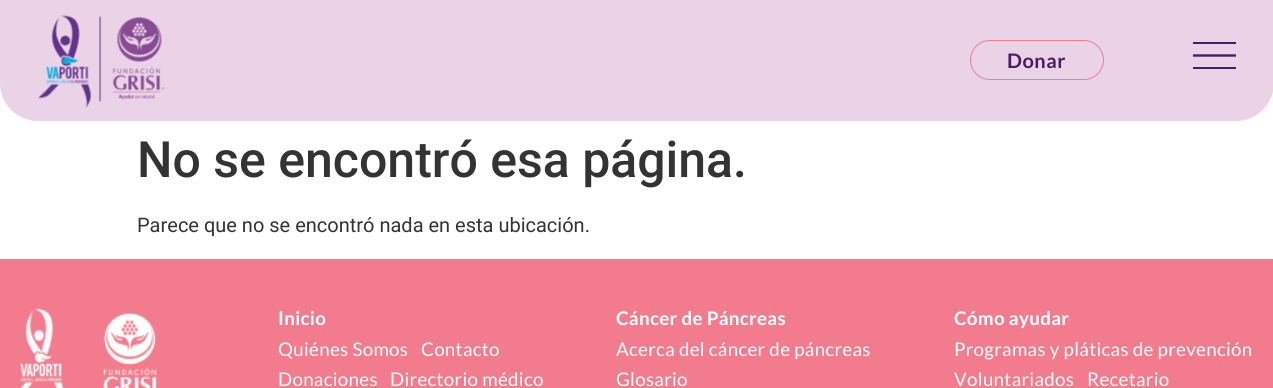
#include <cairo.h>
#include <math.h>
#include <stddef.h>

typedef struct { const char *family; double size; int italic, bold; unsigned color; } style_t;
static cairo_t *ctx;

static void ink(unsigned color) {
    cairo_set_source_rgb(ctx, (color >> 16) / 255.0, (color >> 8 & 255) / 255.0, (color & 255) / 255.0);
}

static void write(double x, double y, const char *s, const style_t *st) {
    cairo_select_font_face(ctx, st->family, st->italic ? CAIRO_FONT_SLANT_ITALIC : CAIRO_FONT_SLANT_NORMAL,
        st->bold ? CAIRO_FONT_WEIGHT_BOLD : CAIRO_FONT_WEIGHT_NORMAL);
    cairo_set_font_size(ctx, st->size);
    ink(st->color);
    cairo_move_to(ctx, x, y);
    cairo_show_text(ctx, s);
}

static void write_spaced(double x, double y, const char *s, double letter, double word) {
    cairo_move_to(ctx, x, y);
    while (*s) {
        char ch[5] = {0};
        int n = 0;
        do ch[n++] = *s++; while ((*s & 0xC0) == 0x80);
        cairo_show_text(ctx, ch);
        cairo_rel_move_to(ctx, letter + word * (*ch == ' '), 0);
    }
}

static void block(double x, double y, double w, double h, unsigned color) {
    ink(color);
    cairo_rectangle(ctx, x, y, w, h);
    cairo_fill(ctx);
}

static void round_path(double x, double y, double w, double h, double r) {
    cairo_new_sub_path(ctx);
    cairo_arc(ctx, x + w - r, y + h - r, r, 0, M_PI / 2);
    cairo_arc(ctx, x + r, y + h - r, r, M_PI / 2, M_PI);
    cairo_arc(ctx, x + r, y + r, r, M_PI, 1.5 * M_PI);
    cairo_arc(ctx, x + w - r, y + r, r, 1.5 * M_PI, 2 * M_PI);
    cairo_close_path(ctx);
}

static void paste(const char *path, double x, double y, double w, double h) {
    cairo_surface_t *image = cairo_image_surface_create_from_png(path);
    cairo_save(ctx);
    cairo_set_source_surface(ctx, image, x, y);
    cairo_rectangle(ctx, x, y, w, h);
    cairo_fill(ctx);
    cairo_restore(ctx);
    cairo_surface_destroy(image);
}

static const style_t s1 = {"Roboto Medium", 50, 0, 0, 0x333333};
static const style_t s2 = {"Roboto", 20, 0, 0, 0x333333};

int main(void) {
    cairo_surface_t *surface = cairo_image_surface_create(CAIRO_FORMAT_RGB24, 1273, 388);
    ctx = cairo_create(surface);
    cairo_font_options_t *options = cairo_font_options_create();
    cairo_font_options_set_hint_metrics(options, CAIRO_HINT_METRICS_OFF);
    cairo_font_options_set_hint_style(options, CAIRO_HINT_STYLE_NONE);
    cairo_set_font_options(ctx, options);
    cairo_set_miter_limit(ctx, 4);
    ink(0xffffff);
    cairo_paint(ctx);
    ink(0xead2e7);
    cairo_new_path(ctx);
    cairo_move_to(ctx, 0, 0);
    cairo_line_to(ctx, 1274, 0);
    cairo_line_to(ctx, 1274, 83);
    cairo_curve_to(ctx, 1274, 104, 1257, 121, 1236, 121);
    cairo_line_to(ctx, 38, 121);
    cairo_curve_to(ctx, 17, 121, 0, 104, 0, 83);
    cairo_close_path(ctx);
    cairo_fill(ctx);
    paste("pic1.png", 38, 15, 127, 93);
    round_path(970.5, 40.5, 133, 39, 19.5);
    ink(0xf27c8e);
    cairo_set_line_width(ctx, 1);
    cairo_stroke(ctx);
    cairo_select_font_face(ctx, "Lato", CAIRO_FONT_SLANT_NORMAL, CAIRO_FONT_WEIGHT_BOLD);
    cairo_set_font_size(ctx, 20);
    ink(0x481d67);
    write_spaced(1007, 68, "Donar", 0.5, 0);
    block(1193, 42, 43, 2, 0x481d67);
    cairo_save(ctx);
    cairo_rectangle(ctx, 1193, 34, 43, 44);
    cairo_clip(ctx);
    cairo_new_path(ctx);
    cairo_move_to(ctx, 1192.5, 55.5);
    cairo_line_to(ctx, 1236.5, 55.5);
    cairo_set_line_width(ctx, 2.4);
    cairo_stroke(ctx);
    cairo_restore(ctx);
    block(1193, 67, 43, 2, 0x481d67);
    write(137, 177, "No se encontró esa página.", &s1);
    write(137, 232, "Parece que no se encontró nada en esta ubicación.", &s2);
    block(0, 259, 1273, 129, 0xf27c8e);
    paste("pic2.png", 20, 308, 137, 80);
    cairo_select_font_face(ctx, "Lato", CAIRO_FONT_SLANT_NORMAL, CAIRO_FONT_WEIGHT_BOLD);
    cairo_set_font_size(ctx, 18.75);
    ink(0xffffff);
    write_spaced(278, 325, "Inicio", 0.3, 0);
    cairo_select_font_face(ctx, "Lato", CAIRO_FONT_SLANT_NORMAL, CAIRO_FONT_WEIGHT_NORMAL);
    write_spaced(278, 356, "Quiénes Somos", 0.3, 0);
    write_spaced(421, 356, "Contacto", 0.3, 0);
    write_spaced(278, 386, "Donaciones", 0.3, 0);
    write_spaced(390, 386, "Directorio médico", 0.3, 0);
    cairo_select_font_face(ctx, "Lato", CAIRO_FONT_SLANT_NORMAL, CAIRO_FONT_WEIGHT_BOLD);
    write_spaced(616, 325, "Cáncer de Páncreas", 0.3, 0);
    cairo_select_font_face(ctx, "Lato", CAIRO_FONT_SLANT_NORMAL, CAIRO_FONT_WEIGHT_NORMAL);
    write_spaced(616, 356, "Acerca del cáncer de páncreas", 0.3, 0);
    write_spaced(616, 386, "Glosario", 0.3, 0);
    cairo_select_font_face(ctx, "Lato", CAIRO_FONT_SLANT_NORMAL, CAIRO_FONT_WEIGHT_BOLD);
    write_spaced(954, 325, "Cómo ayudar", 0.3, 0);
    cairo_select_font_face(ctx, "Lato", CAIRO_FONT_SLANT_NORMAL, CAIRO_FONT_WEIGHT_NORMAL);
    write_spaced(954, 356, "Programas y pláticas de prevención", 0.3, 0);
    write_spaced(954, 386, "Voluntariados", 0.3, 0);
    write_spaced(1087, 386, "Recetario", 0.3, 0);
    cairo_surface_write_to_png(surface, "screenshot.png");
    cairo_font_options_destroy(options);
    cairo_destroy(ctx);
    cairo_surface_destroy(surface);
    return 0;
}
